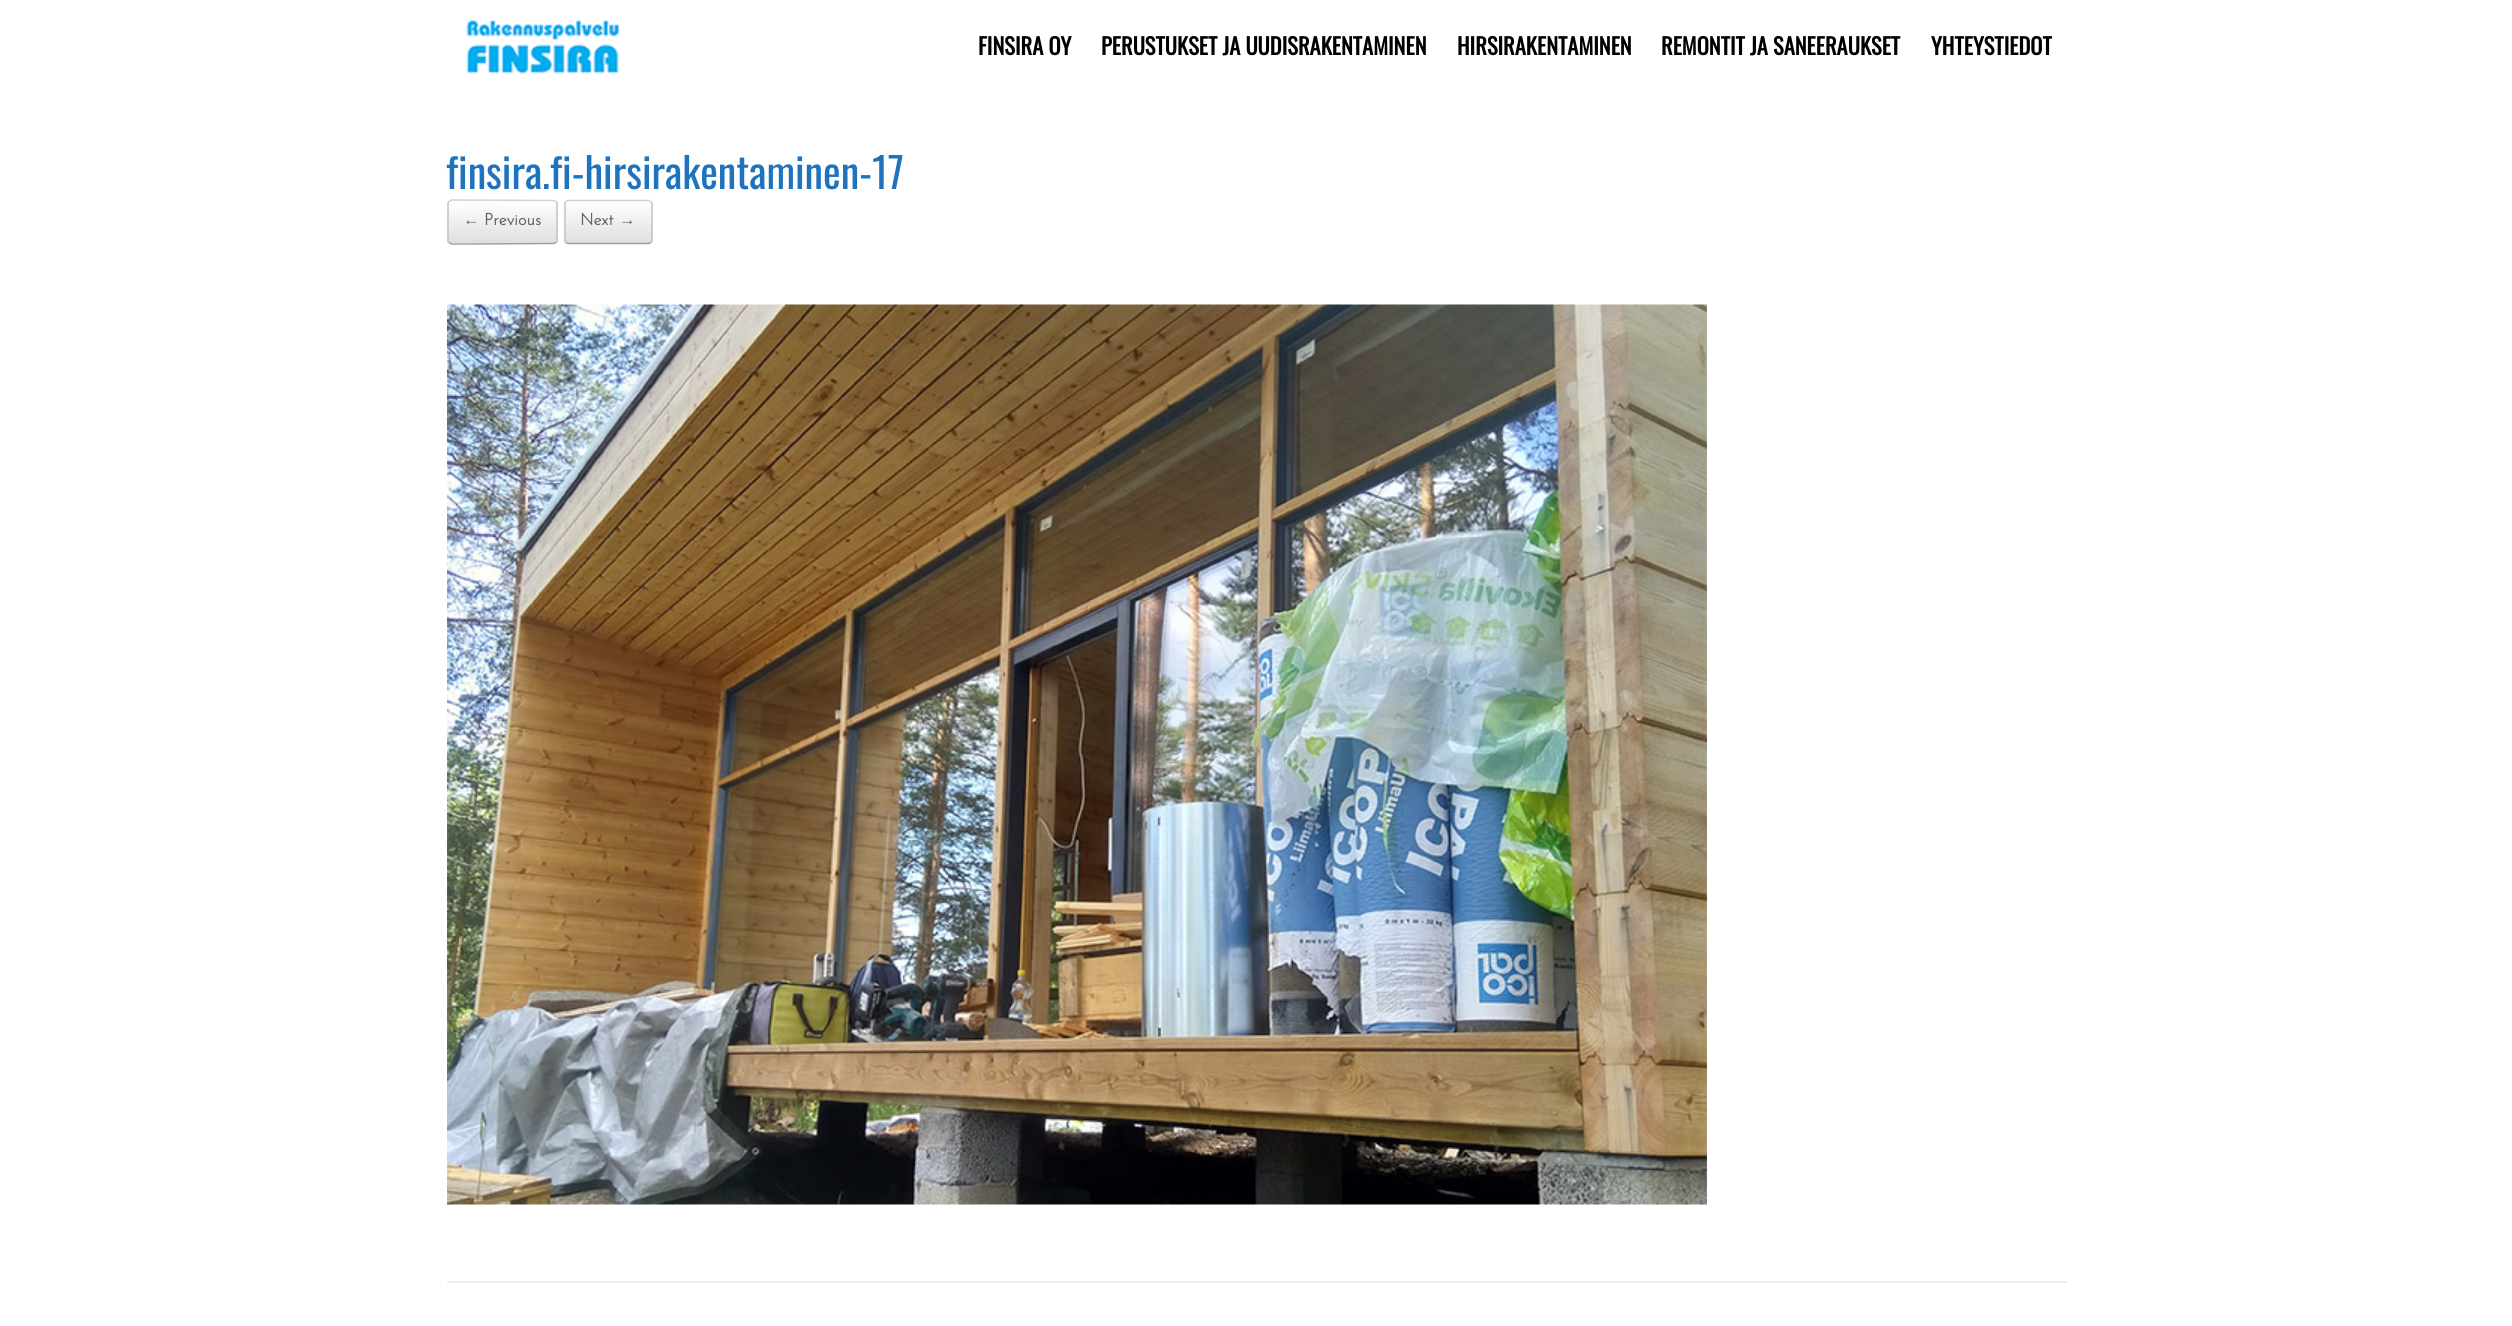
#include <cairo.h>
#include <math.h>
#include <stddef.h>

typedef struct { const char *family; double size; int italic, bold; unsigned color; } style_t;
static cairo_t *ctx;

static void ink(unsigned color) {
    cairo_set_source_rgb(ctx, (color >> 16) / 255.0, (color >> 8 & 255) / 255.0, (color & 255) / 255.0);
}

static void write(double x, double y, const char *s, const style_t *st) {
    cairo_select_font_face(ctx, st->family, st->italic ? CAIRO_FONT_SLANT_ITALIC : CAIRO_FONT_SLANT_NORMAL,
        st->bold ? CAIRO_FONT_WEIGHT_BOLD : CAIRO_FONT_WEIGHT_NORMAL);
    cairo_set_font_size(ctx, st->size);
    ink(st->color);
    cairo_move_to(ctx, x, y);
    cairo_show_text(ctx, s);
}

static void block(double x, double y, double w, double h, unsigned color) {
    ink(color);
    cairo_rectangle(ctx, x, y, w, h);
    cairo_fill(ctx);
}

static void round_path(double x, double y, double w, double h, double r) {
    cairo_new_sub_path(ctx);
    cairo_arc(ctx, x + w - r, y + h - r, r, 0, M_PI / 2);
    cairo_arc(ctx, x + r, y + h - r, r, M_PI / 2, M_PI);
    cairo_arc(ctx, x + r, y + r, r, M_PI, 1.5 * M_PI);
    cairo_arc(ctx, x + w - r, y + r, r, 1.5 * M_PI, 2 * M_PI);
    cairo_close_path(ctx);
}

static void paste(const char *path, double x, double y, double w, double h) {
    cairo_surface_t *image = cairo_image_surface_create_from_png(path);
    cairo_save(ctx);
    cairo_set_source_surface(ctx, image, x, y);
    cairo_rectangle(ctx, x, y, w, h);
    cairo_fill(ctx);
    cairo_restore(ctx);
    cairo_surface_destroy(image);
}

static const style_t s1 = {"Oswald", 22.5, 0, 1, 0x000000};
static const style_t s2 = {"Oswald", 42, 0, 0, 0x1e73be};
static const style_t s3 = {"Liberation Serif", 16.5, 0, 1, 0x646464};
static const style_t s4 = {"Josefin Sans", 16.5, 0, 1, 0x646464};

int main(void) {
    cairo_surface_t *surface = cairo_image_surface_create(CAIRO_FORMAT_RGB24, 2512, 1326);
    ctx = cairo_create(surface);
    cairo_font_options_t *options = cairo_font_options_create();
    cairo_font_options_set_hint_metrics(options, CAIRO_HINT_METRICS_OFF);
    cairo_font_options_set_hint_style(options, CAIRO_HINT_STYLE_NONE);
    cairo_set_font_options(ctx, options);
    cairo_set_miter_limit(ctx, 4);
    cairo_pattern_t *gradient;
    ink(0xffffff);
    cairo_paint(ctx);
    paste("pic1.png", 466, 19, 154, 55);
    write(978, 55, "FINSIRA OY", &s1);
    write(1101, 55, "PERUSTUKSET JA UUDISRAKENTAMINEN", &s1);
    write(1457, 55, "HIRSIRAKENTAMINEN", &s1);
    write(1661, 55, "REMONTIT JA SANEERAUKSET", &s1);
    write(1931, 55, "YHTEYSTIEDOT", &s1);
    block(447, 1281, 1620, 2, 0xeeeeee);
    write(446, 189, "finsira.fi-hirsirakentaminen-17", &s2);
    cairo_save(ctx);
    round_path(447, 200, 111, 45, 5);
    cairo_clip(ctx);
    gradient = cairo_pattern_create_linear(449, 243, 449, 201);
    cairo_pattern_add_color_stop_rgba(gradient, 0, 0.875, 0.875, 0.875, 1);
    cairo_pattern_add_color_stop_rgba(gradient, 1, 1, 1, 1, 1);
    cairo_set_source(ctx, gradient);
    cairo_pattern_destroy(gradient);
    cairo_rectangle(ctx, 447, 201, 111, 42);
    cairo_fill(ctx);
    cairo_restore(ctx);
    cairo_new_path(ctx);
    cairo_move_to(ctx, 449, 201.5);
    cairo_line_to(ctx, 451.5, 200);
    cairo_line_to(ctx, 554, 200.5);
    cairo_line_to(ctx, 556, 201.5);
    ink(0xd2d2d2);
    cairo_set_line_width(ctx, 1.5);
    cairo_stroke(ctx);
    cairo_new_path(ctx);
    cairo_move_to(ctx, 556, 201.5);
    cairo_curve_to(ctx, 557, 202, 557, 203, 557, 204);
    cairo_line_to(ctx, 557, 240);
    cairo_curve_to(ctx, 557, 241, 557, 242, 556, 242.5);
    ink(0xc3c3c3);
    cairo_stroke(ctx);
    cairo_new_path(ctx);
    cairo_move_to(ctx, 556, 242.5);
    cairo_line_to(ctx, 554, 243.5);
    cairo_line_to(ctx, 468.5, 244);
    cairo_line_to(ctx, 451.5, 244);
    cairo_line_to(ctx, 449, 242.5);
    ink(0x9f9f9f);
    cairo_stroke(ctx);
    cairo_new_path(ctx);
    cairo_move_to(ctx, 449, 242.5);
    cairo_curve_to(ctx, 448, 242, 448, 241, 448, 240);
    cairo_line_to(ctx, 448, 204);
    cairo_curve_to(ctx, 448, 203, 448, 202, 449, 201.5);
    ink(0xc3c3c3);
    cairo_stroke(ctx);
    write(463, 225, "←", &s3);
    write(484, 225, "Previous", &s4);
    cairo_save(ctx);
    round_path(564, 200, 89, 45, 5);
    cairo_clip(ctx);
    gradient = cairo_pattern_create_linear(566, 243, 566, 201);
    cairo_pattern_add_color_stop_rgba(gradient, 0, 0.875, 0.875, 0.875, 1);
    cairo_pattern_add_color_stop_rgba(gradient, 1, 1, 1, 1, 1);
    cairo_set_source(ctx, gradient);
    cairo_pattern_destroy(gradient);
    cairo_rectangle(ctx, 564, 201, 89, 42);
    cairo_fill(ctx);
    cairo_restore(ctx);
    cairo_new_path(ctx);
    cairo_move_to(ctx, 566, 201.5);
    cairo_line_to(ctx, 568, 200.5);
    cairo_line_to(ctx, 648.5, 200.5);
    cairo_line_to(ctx, 650.5, 201.5);
    ink(0xd2d2d2);
    cairo_stroke(ctx);
    cairo_new_path(ctx);
    cairo_move_to(ctx, 650.5, 201.5);
    cairo_curve_to(ctx, 651.5, 202, 652, 203, 652, 204);
    cairo_line_to(ctx, 652, 240);
    cairo_curve_to(ctx, 652, 241, 651.5, 242, 650.5, 242.5);
    ink(0xc3c3c3);
    cairo_stroke(ctx);
    cairo_new_path(ctx);
    cairo_move_to(ctx, 650.5, 242.5);
    cairo_line_to(ctx, 648.5, 243.5);
    cairo_line_to(ctx, 568, 243.5);
    cairo_line_to(ctx, 566, 242.5);
    ink(0x9f9f9f);
    cairo_stroke(ctx);
    cairo_new_path(ctx);
    cairo_move_to(ctx, 566, 242.5);
    cairo_curve_to(ctx, 565, 242, 565, 241, 565, 240);
    cairo_line_to(ctx, 565, 204);
    cairo_curve_to(ctx, 565, 203, 565, 202, 566, 201.5);
    ink(0xc3c3c3);
    cairo_stroke(ctx);
    write(580, 225, "Next", &s4);
    write(619, 225, "→", &s3);
    paste("pic2.png", 447, 304, 1260, 901);
    cairo_surface_write_to_png(surface, "screenshot.png");
    cairo_font_options_destroy(options);
    cairo_destroy(ctx);
    cairo_surface_destroy(surface);
    return 0;
}
